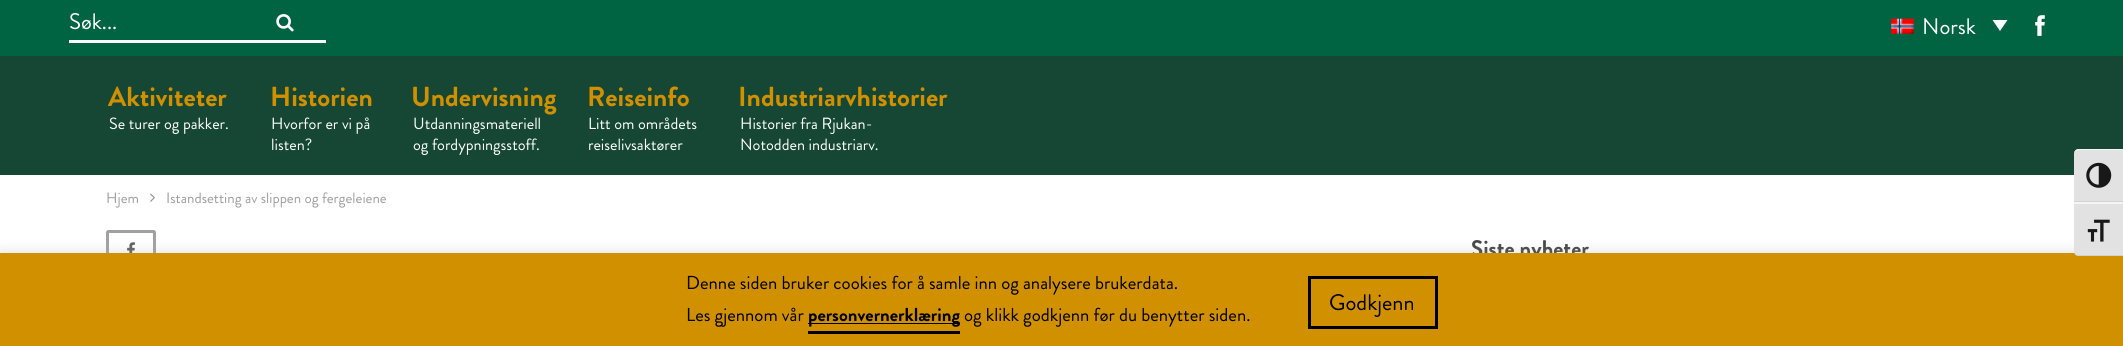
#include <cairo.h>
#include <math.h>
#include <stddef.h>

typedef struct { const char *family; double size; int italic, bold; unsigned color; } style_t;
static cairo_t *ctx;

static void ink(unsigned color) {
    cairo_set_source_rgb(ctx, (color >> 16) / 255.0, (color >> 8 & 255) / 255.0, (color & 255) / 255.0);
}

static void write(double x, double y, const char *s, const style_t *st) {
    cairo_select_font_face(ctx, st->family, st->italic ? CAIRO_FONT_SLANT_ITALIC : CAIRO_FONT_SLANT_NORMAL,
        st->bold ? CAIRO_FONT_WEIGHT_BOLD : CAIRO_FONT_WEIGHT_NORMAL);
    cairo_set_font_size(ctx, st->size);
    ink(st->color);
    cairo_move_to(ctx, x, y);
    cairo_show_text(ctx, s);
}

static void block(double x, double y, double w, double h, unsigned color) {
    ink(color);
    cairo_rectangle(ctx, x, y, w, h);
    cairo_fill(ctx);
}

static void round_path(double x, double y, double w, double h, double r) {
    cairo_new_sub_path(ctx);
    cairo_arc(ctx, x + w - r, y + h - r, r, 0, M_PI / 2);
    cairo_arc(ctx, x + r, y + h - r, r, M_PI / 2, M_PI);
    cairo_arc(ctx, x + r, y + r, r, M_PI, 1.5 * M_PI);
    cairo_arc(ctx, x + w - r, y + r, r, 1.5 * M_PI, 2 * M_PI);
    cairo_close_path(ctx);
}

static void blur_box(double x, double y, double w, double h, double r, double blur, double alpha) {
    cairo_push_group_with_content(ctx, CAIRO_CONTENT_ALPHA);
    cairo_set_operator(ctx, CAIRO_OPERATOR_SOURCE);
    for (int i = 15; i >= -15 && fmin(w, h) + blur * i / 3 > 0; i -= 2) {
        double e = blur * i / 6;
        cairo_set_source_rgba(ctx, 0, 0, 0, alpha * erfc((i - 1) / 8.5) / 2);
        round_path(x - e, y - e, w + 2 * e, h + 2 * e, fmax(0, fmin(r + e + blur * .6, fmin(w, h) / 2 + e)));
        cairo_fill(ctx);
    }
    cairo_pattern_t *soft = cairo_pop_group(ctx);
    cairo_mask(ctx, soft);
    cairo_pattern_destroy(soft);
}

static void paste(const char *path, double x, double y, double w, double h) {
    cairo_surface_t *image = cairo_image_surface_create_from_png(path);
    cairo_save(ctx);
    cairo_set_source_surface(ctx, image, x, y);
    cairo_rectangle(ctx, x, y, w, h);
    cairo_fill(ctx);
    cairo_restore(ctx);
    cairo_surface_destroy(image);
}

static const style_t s1 = {"Brandon Grotesque", 22.5, 0, 0, 0xffffff};
static const style_t s2 = {"Brandon Grotesque", 27.5, 0, 1, 0xd19000};
static const style_t s3 = {"Brandon Grotesque", 16.25, 0, 0, 0xffffff};
static const style_t s4 = {"Brandon Grotesque", 15, 0, 0, 0x9e9e9e};
static const style_t s5 = {"Brandon Grotesque", 22.5, 0, 1, 0x444444};
static const style_t s6 = {"Brandon Grotesque", 18.75, 0, 0, 0x000000};
static const style_t s7 = {"Brandon Grotesque", 18.75, 0, 1, 0x000000};
static const style_t s8 = {"Brandon Grotesque", 22.5, 0, 0, 0x000000};

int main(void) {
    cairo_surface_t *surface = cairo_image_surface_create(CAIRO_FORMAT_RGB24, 2123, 346);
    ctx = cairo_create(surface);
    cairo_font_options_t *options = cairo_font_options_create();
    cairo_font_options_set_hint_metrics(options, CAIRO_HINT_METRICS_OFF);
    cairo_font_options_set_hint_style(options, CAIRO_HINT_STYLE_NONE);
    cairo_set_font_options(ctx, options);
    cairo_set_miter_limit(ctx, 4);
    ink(0xffffff);
    cairo_paint(ctx);
    block(0, 56, 2123, 119, 0x154734);
    block(0, 0, 2123, 56, 0x006341);
    block(69, 40, 257, 3, 0xffffff);
    write(69, 29, "Søk...", &s1);
    paste("pic1.png", 276, 14, 18, 18);
    paste("pic2.png", 1891, 18, 23, 16);
    write(1922, 34, "Norsk", &s1);
    cairo_new_path(ctx);
    cairo_move_to(ctx, 1992.5, 20);
    cairo_line_to(ctx, 2007.5, 20);
    cairo_line_to(ctx, 2000, 31);
    cairo_close_path(ctx);
    cairo_fill(ctx);
    paste("pic3.png", 2035, 15, 10, 21);
    write(108, 106, "Aktiviteter", &s2);
    write(109, 129, "Se turer og pakker.", &s3);
    write(270, 106, "Historien", &s2);
    write(271, 129, "Hvorfor er vi på", &s3);
    write(271, 150, "listen?", &s3);
    write(411, 106, "Undervisning", &s2);
    write(413, 129, "Utdanningsmateriell", &s3);
    write(413, 150, "og fordypningsstoff.", &s3);
    write(587, 106, "Reiseinfo", &s2);
    write(588, 129, "Litt om områdets", &s3);
    write(588, 150, "reiselivsaktører", &s3);
    write(738, 106, "Industriarvhistorier", &s2);
    write(740, 129, "Historier fra Rjukan-", &s3);
    write(740, 150, "Notodden industriarv.", &s3);
    write(106, 203, "Hjem", &s4);
    paste("pic4.png", 150, 193, 5, 9);
    write(166, 203, "Istandsetting av slippen og fergeleiene", &s4);
    round_path(107.5, 231.5, 47, 37, 1);
    ink(0xa1a1a1);
    cairo_set_line_width(ctx, 3);
    cairo_stroke(ctx);
    paste("pic5.png", 127, 242, 8, 11);
    write(1471, 256, "Siste nyheter", &s5);
    ink(0xe2e2e2);
    cairo_new_path(ctx);
    cairo_move_to(ctx, 2079, 149);
    cairo_line_to(ctx, 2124, 149);
    cairo_line_to(ctx, 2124, 203);
    cairo_line_to(ctx, 2074, 203);
    cairo_line_to(ctx, 2074, 154);
    cairo_curve_to(ctx, 2074, 151, 2076, 149, 2079, 149);
    cairo_close_path(ctx);
    cairo_fill(ctx);
    ink(0xf5f5f5);
    cairo_new_path(ctx);
    cairo_move_to(ctx, 2079, 149);
    cairo_line_to(ctx, 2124, 149);
    cairo_line_to(ctx, 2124, 150);
    cairo_line_to(ctx, 2079, 150);
    cairo_curve_to(ctx, 2076, 150, 2074, 152, 2074, 154);
    cairo_curve_to(ctx, 2074, 151, 2076, 149, 2079, 149);
    cairo_close_path(ctx);
    cairo_fill(ctx);
    block(2074, 201, 49, 1, 0xd2d2d2);
    paste("pic6.png", 2086, 162, 26, 26);
    ink(0xacabab);
    blur_box(0, 251, 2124, 94, 0, 6, 0.3);
    block(0, 253, 2123, 93, 0xd19000);
    ink(0xe2e2e2);
    cairo_new_path(ctx);
    cairo_move_to(ctx, 2074, 203);
    cairo_line_to(ctx, 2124, 203);
    cairo_line_to(ctx, 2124, 256);
    cairo_line_to(ctx, 2079, 256);
    cairo_curve_to(ctx, 2076, 256, 2074, 254, 2074, 251);
    cairo_close_path(ctx);
    cairo_fill(ctx);
    block(2074, 202, 49, 2, 0xf5f5f5);
    ink(0xd2d2d2);
    cairo_new_path(ctx);
    cairo_move_to(ctx, 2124, 255);
    cairo_line_to(ctx, 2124, 256);
    cairo_line_to(ctx, 2079, 256);
    cairo_curve_to(ctx, 2076, 256, 2074, 254, 2074, 251);
    cairo_curve_to(ctx, 2074, 253, 2076, 255, 2079, 255);
    cairo_close_path(ctx);
    cairo_fill(ctx);
    paste("pic7.png", 2087, 219, 23, 23);
    write(686, 289, "Denne siden bruker cookies for å samle inn og analysere brukerdata.", &s6);
    write(686, 321, "Les gjennom vår", &s6);
    block(808, 323, 152, 1, 0x000000);
    write(808, 321, "personvernerklæring", &s7);
    block(808, 331, 152, 3, 0x000000);
    write(964, 321, "og klikk godkjenn før du benytter siden.", &s6);
    cairo_rectangle(ctx, 1309.5, 277.5, 127, 50);
    cairo_stroke(ctx);
    write(1329, 310, "Godkjenn", &s8);
    cairo_surface_write_to_png(surface, "screenshot.png");
    cairo_font_options_destroy(options);
    cairo_destroy(ctx);
    cairo_surface_destroy(surface);
    return 0;
}
